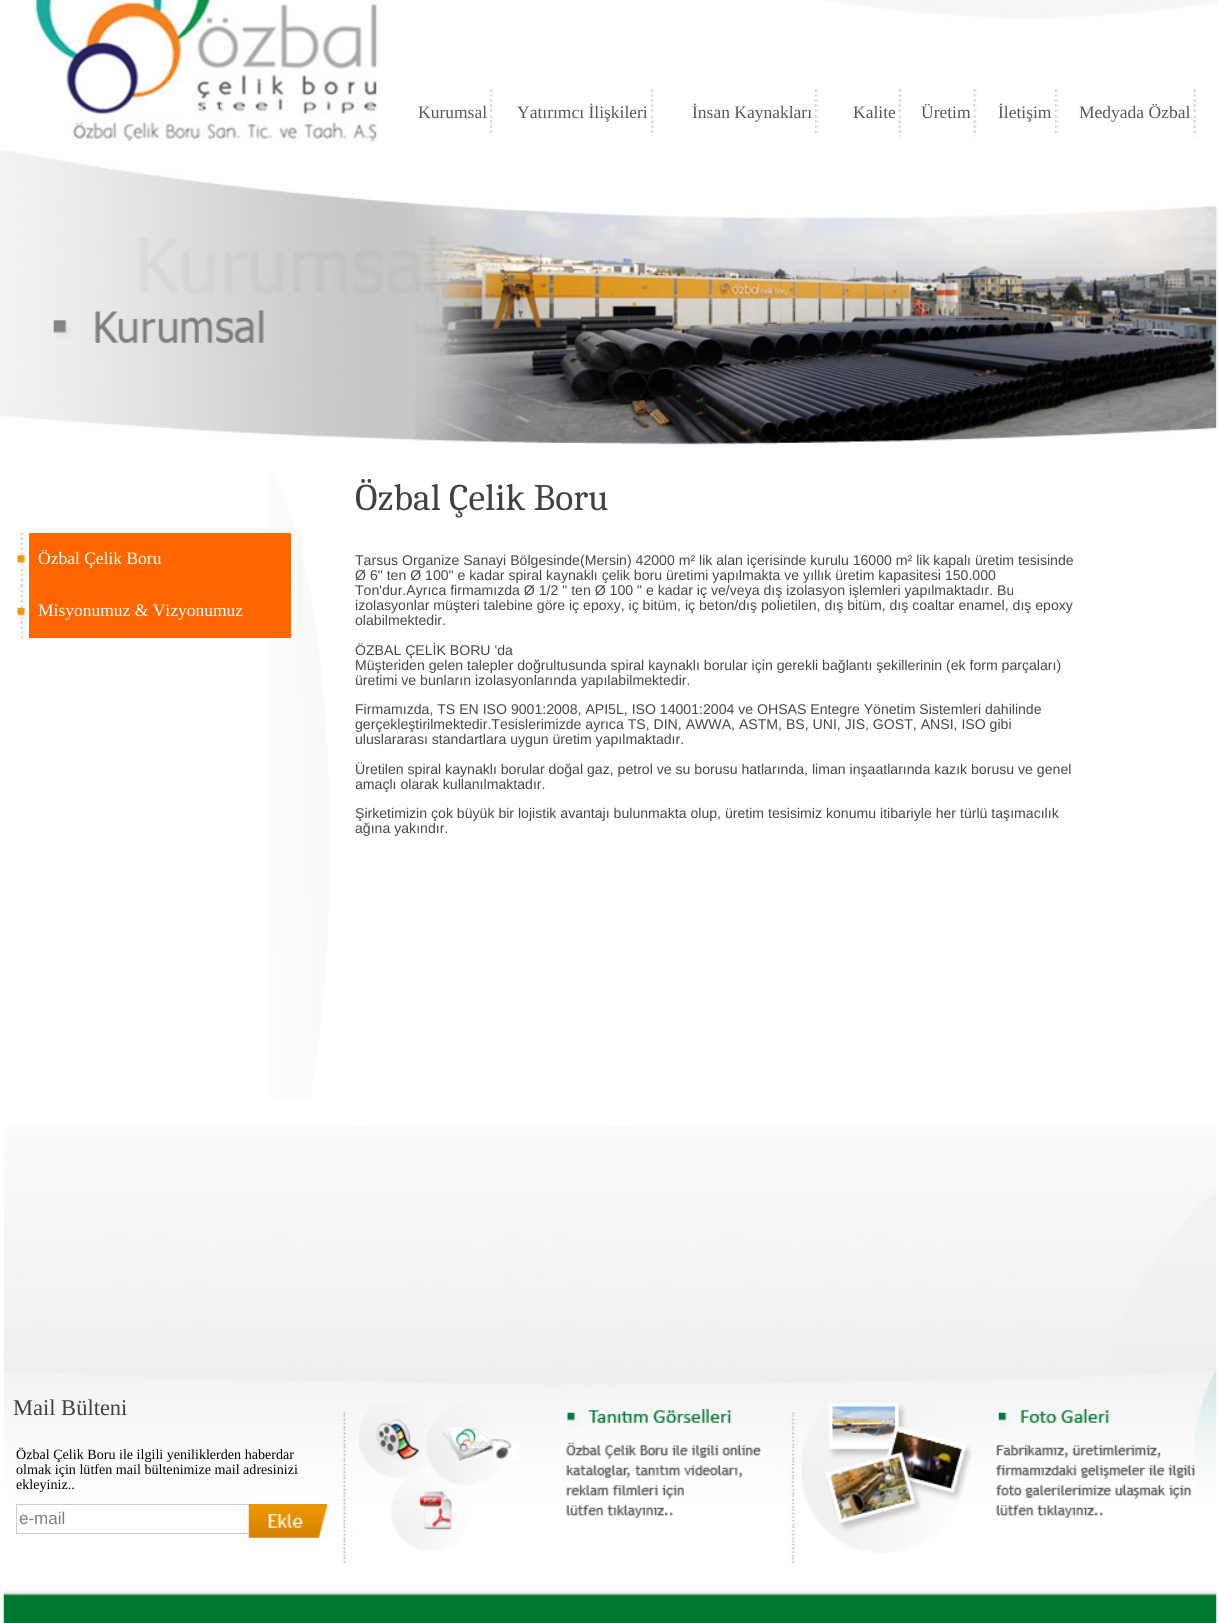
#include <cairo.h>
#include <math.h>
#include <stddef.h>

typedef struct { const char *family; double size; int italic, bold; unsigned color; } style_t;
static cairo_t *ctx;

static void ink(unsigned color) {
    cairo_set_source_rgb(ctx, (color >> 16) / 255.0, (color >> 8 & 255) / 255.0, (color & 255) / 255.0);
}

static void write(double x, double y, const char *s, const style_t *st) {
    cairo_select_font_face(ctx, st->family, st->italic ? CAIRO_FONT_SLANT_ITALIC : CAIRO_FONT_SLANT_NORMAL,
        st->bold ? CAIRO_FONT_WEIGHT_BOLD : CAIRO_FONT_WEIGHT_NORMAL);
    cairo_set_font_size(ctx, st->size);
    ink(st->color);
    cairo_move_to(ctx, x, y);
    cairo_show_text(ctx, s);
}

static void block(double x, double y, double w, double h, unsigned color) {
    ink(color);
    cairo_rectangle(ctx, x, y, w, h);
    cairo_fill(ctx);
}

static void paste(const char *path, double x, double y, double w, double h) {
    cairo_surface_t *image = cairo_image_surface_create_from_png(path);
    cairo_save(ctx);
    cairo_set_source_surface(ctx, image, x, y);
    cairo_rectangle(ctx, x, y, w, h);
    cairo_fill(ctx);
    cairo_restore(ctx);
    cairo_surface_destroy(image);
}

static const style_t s1 = {"Liberation Serif", 17.5, 0, 0, 0x575757};
static const style_t s2 = {"Liberation Serif", 17.5, 0, 0, 0xffffff};
static const style_t s3 = {"Caladea", 37.5, 0, 0, 0x424140};
static const style_t s4 = {"Liberation Sans", 14.1, 0, 0, 0x474747};
static const style_t s5 = {"Liberation Serif", 22.5, 0, 0, 0x424140};
static const style_t s6 = {"Liberation Serif", 14.1, 0, 0, 0x000000};
static const style_t s7 = {"Liberation Sans", 17, 0, 0, 0x808080};

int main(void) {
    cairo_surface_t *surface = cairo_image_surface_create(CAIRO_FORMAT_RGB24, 1218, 1623);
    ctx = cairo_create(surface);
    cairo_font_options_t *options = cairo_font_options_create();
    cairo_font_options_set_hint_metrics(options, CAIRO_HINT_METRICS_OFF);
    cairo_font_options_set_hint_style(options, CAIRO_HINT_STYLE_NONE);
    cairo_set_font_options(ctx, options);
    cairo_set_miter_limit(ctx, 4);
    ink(0xffffff);
    cairo_paint(ctx);
    paste("pic1.png", 0, 0, 1218, 445);
    paste("pic2.png", 3, 1126, 1214, 497);
    paste("pic3.png", 35, 0, 344, 142);
    paste("pic4.png", 490, 89, 3, 48);
    write(418, 118, "Kurumsal", &s1);
    paste("pic5.png", 651, 89, 3, 48);
    write(517, 118, "Yatırımcı İlişkileri", &s1);
    paste("pic6.png", 815, 89, 3, 48);
    write(692, 118, "İnsan Kaynakları", &s1);
    paste("pic7.png", 898, 89, 4, 48);
    write(853, 118, "Kalite", &s1);
    paste("pic7.png", 973, 89, 4, 48);
    write(921, 118, "Üretim", &s1);
    paste("pic4.png", 1055, 89, 3, 48);
    write(998, 118, "İletişim", &s1);
    paste("pic7.png", 1193, 89, 4, 48);
    write(1079, 118, "Medyada Özbal", &s1);
    paste("pic8.png", 4, 150, 1213, 295);
    paste("pic9.png", 269, 471, 61, 629);
    paste("pic10.png", 17, 532, 275, 54);
    block(29, 533, 262, 52, 0xff6600);
    write(38, 564, "Özbal Çelik Boru", &s2);
    paste("pic11.png", 17, 585, 275, 53);
    block(29, 585, 262, 53, 0xff6600);
    write(38, 616, "Misyonumuz & Vizyonumuz", &s2);
    write(355, 510, "Özbal Çelik Boru", &s3);
    write(355, 565, "Tarsus Organize Sanayi Bölgesinde(Mersin) 42000 m² lik alan içerisinde kurulu 16000 m² lik kapalı üretim tesisinde", &s4);
    write(355, 580, "Ø 6\" ten Ø 100\" e kadar spiral kaynaklı çelik boru üretimi yapılmakta ve yıllık üretim kapasitesi 150.000", &s4);
    write(355, 595, "Ton'dur.Ayrıca firmamızda Ø 1/2 \" ten Ø 100 \" e kadar iç ve/veya dış izolasyon işlemleri yapılmaktadır. Bu", &s4);
    write(355, 610, "izolasyonlar müşteri talebine göre iç epoxy, iç bitüm, iç beton/dış polietilen, dış bitüm, dış coaltar enamel, dış epoxy", &s4);
    write(355, 625, "olabilmektedir.", &s4);
    write(355, 655, "ÖZBAL ÇELİK BORU 'da", &s4);
    write(355, 670, "Müşteriden gelen talepler doğrultusunda spiral kaynaklı borular için gerekli bağlantı şekillerinin (ek form parçaları)", &s4);
    write(355, 685, "üretimi ve bunların izolasyonlarında yapılabilmektedir.", &s4);
    write(355, 714, "Firmamızda, TS EN ISO 9001:2008, API5L, ISO 14001:2004 ve OHSAS Entegre Yönetim Sistemleri dahilinde", &s4);
    write(355, 729, "gerçekleştirilmektedir.Tesislerimizde ayrıca TS, DIN, AWWA, ASTM, BS, UNI, JIS, GOST, ANSI, ISO gibi", &s4);
    write(355, 744, "uluslararası standartlara uygun üretim yapılmaktadır.", &s4);
    write(355, 774, "Üretilen spiral kaynaklı borular doğal gaz, petrol ve su borusu hatlarında, liman inşaatlarında kazık borusu ve genel", &s4);
    write(355, 789, "amaçlı olarak kullanılmaktadır.", &s4);
    write(355, 818, "Şirketimizin çok büyük bir lojistik avantajı bulunmakta olup, üretim tesisimiz konumu itibariyle her türlü taşımacılık", &s4);
    write(355, 833, "ağına yakındır.", &s4);
    write(13, 1415, "Mail Bülteni", &s5);
    write(16, 1459, "Özbal Çelik Boru ile ilgili yeniliklerden haberdar", &s6);
    write(16, 1474, "olmak için lütfen mail bültenimize mail adresinizi", &s6);
    write(16, 1489, "ekleyiniz..", &s6);
    cairo_rectangle(ctx, 16.5, 1504.5, 236, 29);
    ink(0xcccccc);
    cairo_set_line_width(ctx, 1);
    cairo_stroke(ctx);
    write(19, 1524, "e-mail", &s7);
    paste("pic12.png", 248, 1504, 81, 35);
    paste("pic13.png", 359, 1405, 403, 147);
    paste("pic14.png", 801, 1399, 395, 154);
    cairo_surface_write_to_png(surface, "screenshot.png");
    cairo_font_options_destroy(options);
    cairo_destroy(ctx);
    cairo_surface_destroy(surface);
    return 0;
}
